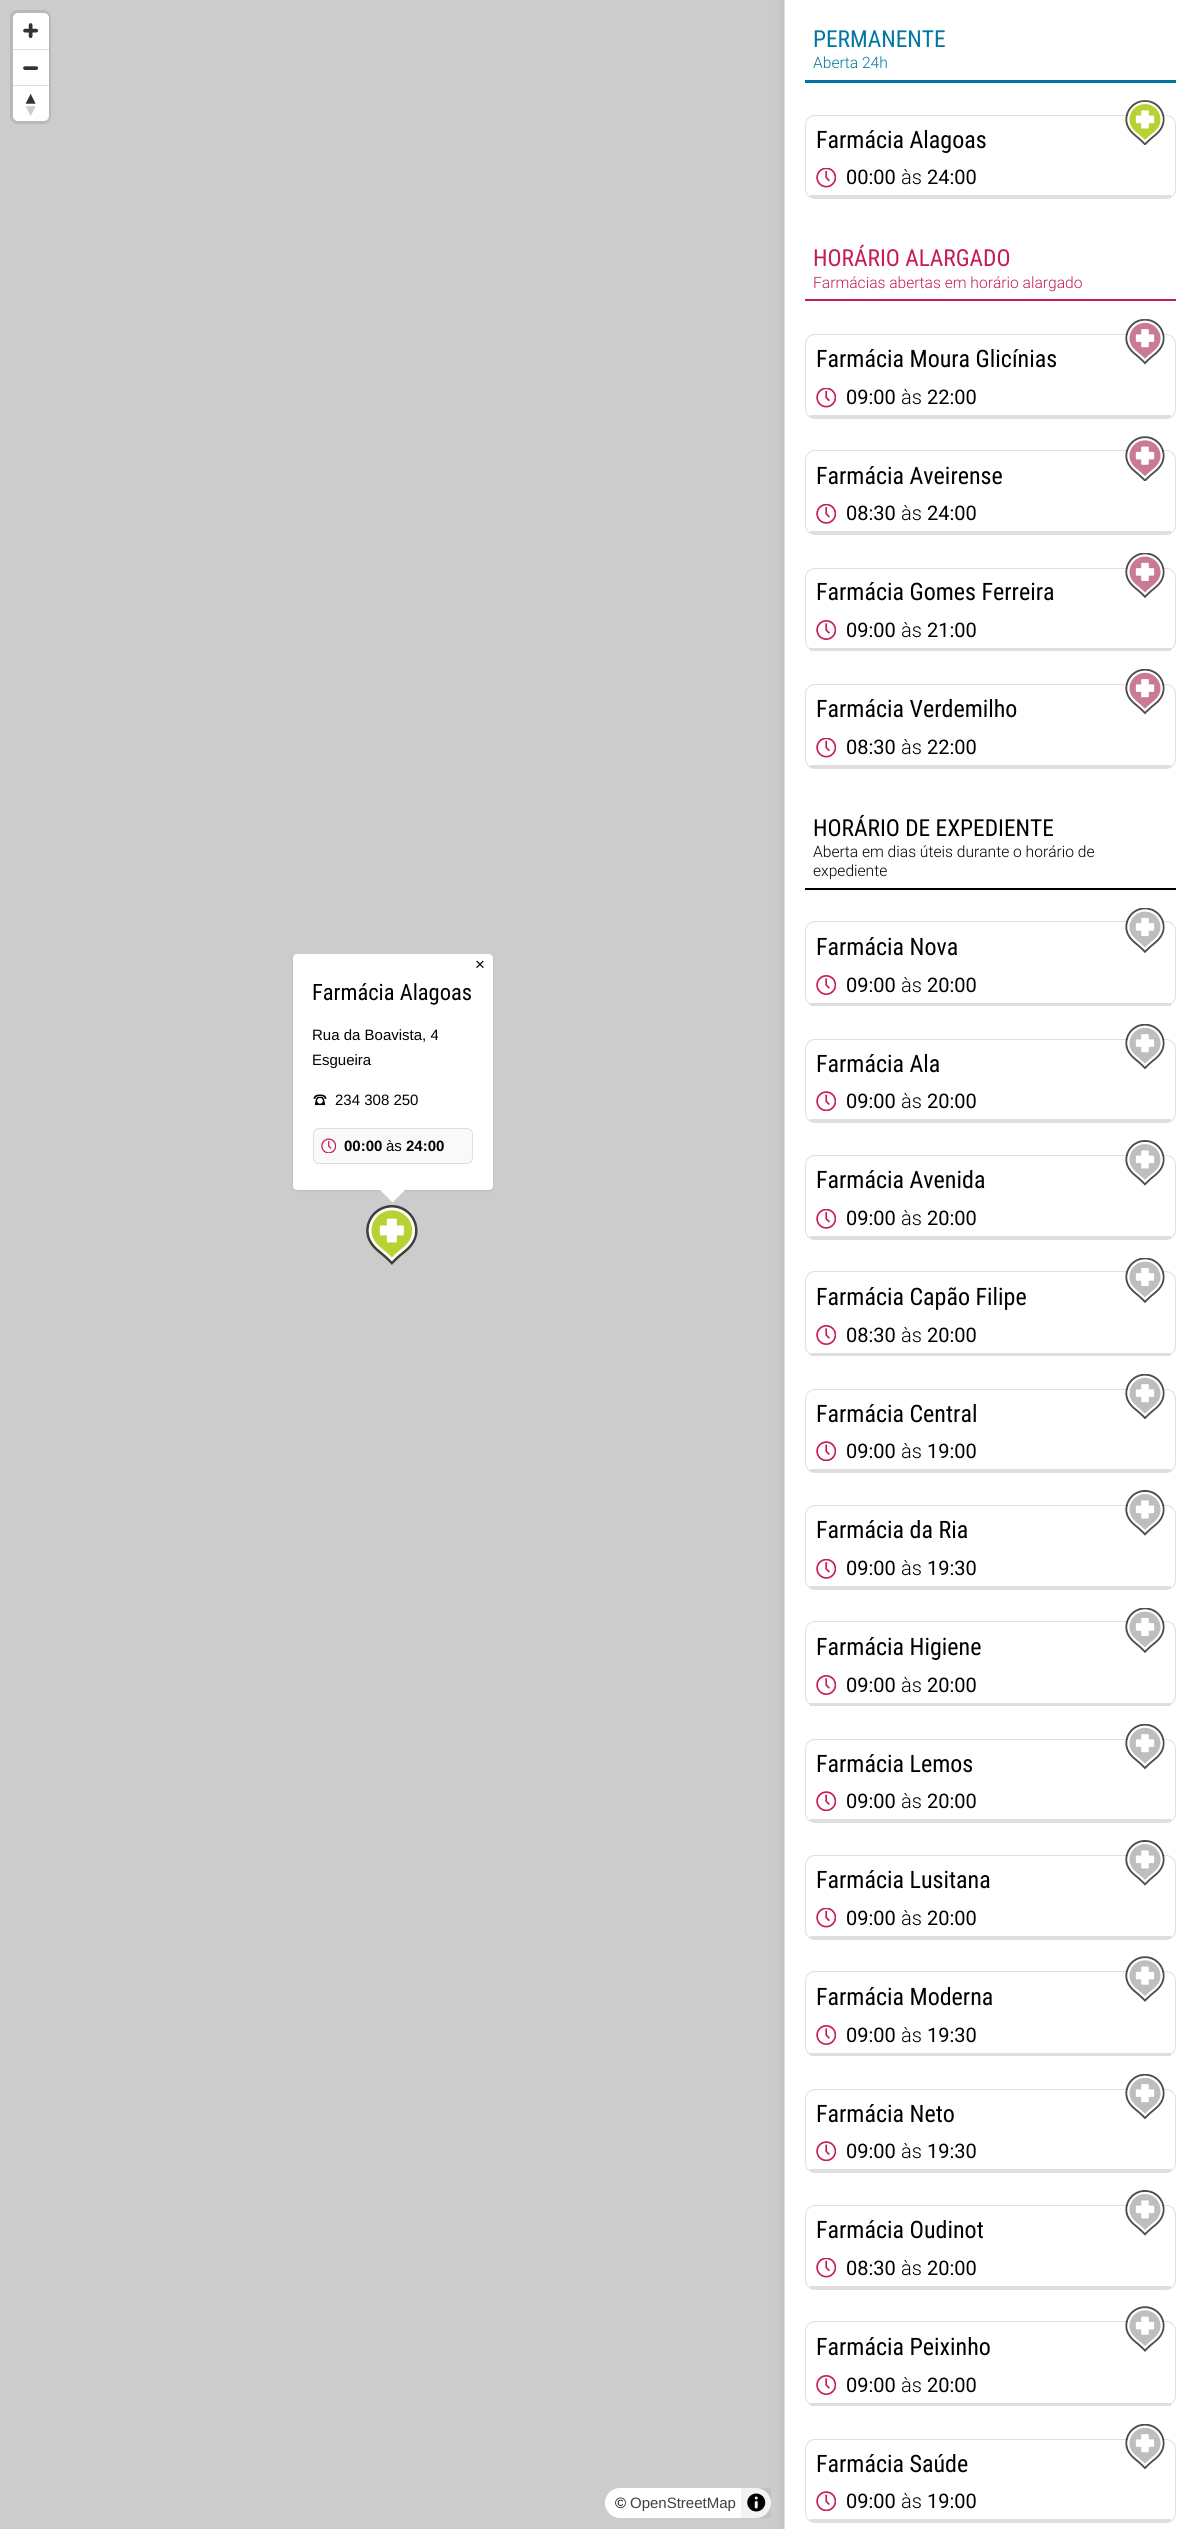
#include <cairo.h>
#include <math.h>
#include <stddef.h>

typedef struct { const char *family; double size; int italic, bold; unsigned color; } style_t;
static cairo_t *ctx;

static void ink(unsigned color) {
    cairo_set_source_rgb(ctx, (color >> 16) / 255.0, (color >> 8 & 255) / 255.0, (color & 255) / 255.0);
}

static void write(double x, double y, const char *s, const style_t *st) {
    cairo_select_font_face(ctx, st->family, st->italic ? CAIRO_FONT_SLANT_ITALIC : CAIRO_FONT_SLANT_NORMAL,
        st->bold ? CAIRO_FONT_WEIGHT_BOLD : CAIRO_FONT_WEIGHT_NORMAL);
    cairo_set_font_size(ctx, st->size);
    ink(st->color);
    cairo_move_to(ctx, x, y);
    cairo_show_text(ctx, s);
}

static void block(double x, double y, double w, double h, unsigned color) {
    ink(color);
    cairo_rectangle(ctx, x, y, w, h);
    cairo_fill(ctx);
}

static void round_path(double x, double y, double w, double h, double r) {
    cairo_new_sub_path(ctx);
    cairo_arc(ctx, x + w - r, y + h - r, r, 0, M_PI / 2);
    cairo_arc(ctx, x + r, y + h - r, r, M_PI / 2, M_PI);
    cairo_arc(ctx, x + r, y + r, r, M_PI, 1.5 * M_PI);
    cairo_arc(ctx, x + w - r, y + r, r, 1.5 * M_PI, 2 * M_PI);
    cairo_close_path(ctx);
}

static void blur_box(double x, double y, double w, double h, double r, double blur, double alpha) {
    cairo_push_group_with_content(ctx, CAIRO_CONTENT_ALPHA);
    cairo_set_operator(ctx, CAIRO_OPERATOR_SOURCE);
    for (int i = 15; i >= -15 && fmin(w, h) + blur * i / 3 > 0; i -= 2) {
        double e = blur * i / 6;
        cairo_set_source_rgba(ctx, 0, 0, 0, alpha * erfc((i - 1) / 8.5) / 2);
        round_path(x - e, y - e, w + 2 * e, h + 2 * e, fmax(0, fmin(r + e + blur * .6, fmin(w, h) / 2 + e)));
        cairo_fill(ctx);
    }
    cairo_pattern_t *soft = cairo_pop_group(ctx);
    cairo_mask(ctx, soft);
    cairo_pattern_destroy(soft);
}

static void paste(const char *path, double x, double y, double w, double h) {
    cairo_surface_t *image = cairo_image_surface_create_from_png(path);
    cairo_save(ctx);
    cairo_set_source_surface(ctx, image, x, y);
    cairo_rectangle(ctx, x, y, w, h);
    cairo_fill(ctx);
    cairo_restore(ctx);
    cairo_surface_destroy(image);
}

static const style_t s1 = {"Liberation Sans", 17, 0, 0, 0x000000};
static const style_t s2 = {"Roboto Condensed", 22.5, 0, 0, 0x000000};
static const style_t s3 = {"Liberation Sans", 15, 0, 0, 0x000000};
static const style_t s4 = {"Liberation Sans", 15, 0, 1, 0x000000};
static const style_t s5 = {"Liberation Sans", 15, 0, 0, 0x404040};
static const style_t s6 = {"Roboto Condensed", 23.4, 0, 0, 0x0076a1};
static const style_t s7 = {"Roboto Light", 15.6, 0, 0, 0x0076a1};
static const style_t s8 = {"Roboto Condensed", 24, 0, 0, 0x000000};
static const style_t s9 = {"Roboto", 20, 0, 0, 0x000000};
static const style_t s10 = {"Roboto Light", 20, 0, 0, 0x000000};
static const style_t s11 = {"Roboto Condensed", 23.4, 0, 0, 0xc51c57};
static const style_t s12 = {"Roboto Light", 15.6, 0, 0, 0xc51c57};
static const style_t s13 = {"Roboto Condensed", 23.4, 0, 0, 0x000000};
static const style_t s14 = {"Roboto Light", 15.6, 0, 0, 0x000000};

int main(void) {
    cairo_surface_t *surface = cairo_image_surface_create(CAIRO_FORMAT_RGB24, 1196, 2529);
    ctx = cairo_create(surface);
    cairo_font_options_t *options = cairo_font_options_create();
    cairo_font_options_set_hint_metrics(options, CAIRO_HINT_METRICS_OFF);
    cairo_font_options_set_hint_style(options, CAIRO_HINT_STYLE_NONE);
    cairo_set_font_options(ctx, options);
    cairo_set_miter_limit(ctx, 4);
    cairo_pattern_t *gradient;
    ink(0xcccccc);
    cairo_paint(ctx);
    ink(0x000000);
    blur_box(293, 955, 200, 236, 4, 1, 0.1);
    ink(0xffffff);
    round_path(293, 954, 200, 236, 4);
    cairo_fill(ctx);
    write(475, 970, "×", &s1);
    write(312, 1000, "Farmácia Alagoas", &s2);
    write(312, 1040, "Rua da Boavista, 4", &s3);
    write(312, 1065, "Esgueira", &s3);
    paste("pic1.png", 313, 1094, 14, 12);
    write(335, 1105, "234 308 250", &s3);
    ink(0xf9f9f9);
    round_path(313, 1128, 160, 36, 6);
    cairo_fill(ctx);
    paste("pic2.png", 321, 1138, 15, 15);
    round_path(313.5, 1128.5, 159, 35, 5.5);
    ink(0xdfdfdf);
    cairo_set_line_width(ctx, 1);
    cairo_stroke(ctx);
    write(344, 1151, "00:00", &s4);
    write(386, 1151, "às", &s3);
    write(406, 1151, "24:00", &s4);
    ink(0xffffff);
    cairo_new_path(ctx);
    cairo_move_to(ctx, 380, 1190);
    cairo_line_to(ctx, 405, 1190);
    cairo_line_to(ctx, 392.5, 1202.5);
    cairo_close_path(ctx);
    cairo_fill(ctx);
    paste("pic3.png", 366, 1205, 52, 60);
    round_path(11.5, 11.5, 38, 111, 6.5);
    ink(0xb8b8b8);
    cairo_set_line_width(ctx, 3);
    cairo_stroke(ctx);
    ink(0xffffff);
    round_path(13, 13, 36, 108, 5);
    cairo_fill(ctx);
    paste("pic4.png", 23, 23, 16, 16);
    block(13, 49, 36, 1, 0xdddddd);
    paste("pic5.png", 23, 66, 16, 4);
    block(13, 85, 36, 1, 0xdddddd);
    paste("pic6.png", 25, 93, 11, 23);
    ink(0x000000);
    blur_box(784, 0, 412, 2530, 0, 5, 0.1);
    ink(0xffffff);
    round_path(605, 2488, 166, 30, 15);
    cairo_fill(ctx);
    write(615, 2508, "©", &s3);
    write(630, 2508, "OpenStreetMap", &s5);
    cairo_set_source_rgba(ctx, 0, 0, 0, 0.05);
    cairo_rectangle(ctx, 741, 2488, 30, 30);
    cairo_fill(ctx);
    paste("pic7.png", 747, 2493, 19, 19);
    block(785, 0, 411, 2529, 0xffffff);
    block(784, 0, 1, 2529, 0xdfdfdf);
    block(805, 80, 371, 3, 0x0076a1);
    write(813, 47, "PERMANENTE", &s6);
    write(813, 68, "Aberta 24h", &s7);
    round_path(805.5, 115.5, 370, 83, 9.5);
    ink(0xdfdfdf);
    cairo_set_line_width(ctx, 1);
    cairo_stroke(ctx);
    paste("pic8.png", 1125, 100, 40, 45);
    gradient = cairo_pattern_create_linear(991, 82, 991, 103);
    cairo_pattern_add_color_stop_rgba(gradient, 0, 1, 1, 1, 1);
    cairo_pattern_add_color_stop_rgba(gradient, 1, 1, 1, 1, 0);
    cairo_set_source(ctx, gradient);
    cairo_pattern_destroy(gradient);
    cairo_rectangle(ctx, 1136, 100, 18, 3);
    cairo_fill(ctx);
    block(810, 195, 361, 3, 0xdfdfdf);
    write(816, 148, "Farmácia Alagoas", &s8);
    paste("pic9.png", 816, 168, 20, 20);
    write(846, 184, "00:00", &s9);
    write(901, 184, "às", &s10);
    write(927, 184, "24:00", &s9);
    block(805, 299, 371, 3, 0xc51c57);
    write(813, 266, "HORÁRIO ALARGADO", &s11);
    write(813, 288, "Farmácias abertas em horário alargado", &s12);
    round_path(805.5, 334.5, 370, 84, 9.5);
    ink(0xdfdfdf);
    cairo_stroke(ctx);
    paste("pic10.png", 1125, 319, 40, 46);
    gradient = cairo_pattern_create_linear(991, 301, 991, 321);
    cairo_pattern_add_color_stop_rgba(gradient, 0, 1, 1, 1, 1);
    cairo_pattern_add_color_stop_rgba(gradient, 1, 1, 1, 1, 0);
    cairo_set_source(ctx, gradient);
    cairo_pattern_destroy(gradient);
    cairo_rectangle(ctx, 805, 301, 371, 20);
    cairo_fill(ctx);
    block(810, 415, 361, 3, 0xdfdfdf);
    write(816, 367, "Farmácia Moura Glicínias", &s8);
    paste("pic9.png", 816, 388, 20, 20);
    write(846, 404, "09:00", &s9);
    write(901, 404, "às", &s10);
    write(927, 404, "22:00", &s9);
    round_path(805.5, 450.5, 370, 84, 9.5);
    ink(0xdfdfdf);
    cairo_stroke(ctx);
    block(810, 531, 361, 3, 0xdfdfdf);
    write(816, 484, "Farmácia Aveirense", &s8);
    paste("pic11.png", 1125, 436, 40, 45);
    paste("pic12.png", 816, 504, 20, 20);
    write(846, 520, "08:30", &s9);
    write(901, 520, "às", &s10);
    write(927, 520, "24:00", &s9);
    round_path(805.5, 568.5, 370, 82, 9.5);
    ink(0xdfdfdf);
    cairo_stroke(ctx);
    block(810, 648, 361, 3, 0xdfdfdf);
    write(816, 600, "Farmácia Gomes Ferreira", &s8);
    paste("pic13.png", 1125, 553, 40, 45);
    paste("pic14.png", 816, 620, 20, 20);
    write(846, 637, "09:00", &s9);
    write(901, 637, "às", &s10);
    write(927, 637, "21:00", &s9);
    round_path(805.5, 684.5, 370, 84, 9.5);
    ink(0xdfdfdf);
    cairo_stroke(ctx);
    block(810, 765, 361, 3, 0xdfdfdf);
    write(816, 717, "Farmácia Verdemilho", &s8);
    paste("pic10.png", 1125, 669, 40, 46);
    paste("pic9.png", 816, 738, 20, 20);
    write(846, 754, "08:30", &s9);
    write(901, 754, "às", &s10);
    write(927, 754, "22:00", &s9);
    block(805, 888, 371, 3, 0x000000);
    write(813, 836, "HORÁRIO DE EXPEDIENTE", &s13);
    write(813, 857, "Aberta em dias úteis durante o horário de", &s14);
    write(813, 876, "expediente", &s14);
    round_path(805.5, 921.5, 370, 84, 9.5);
    ink(0xdfdfdf);
    cairo_stroke(ctx);
    paste("pic15.png", 1125, 908, 40, 45);
    gradient = cairo_pattern_create_linear(991, 890, 991, 909);
    cairo_pattern_add_color_stop_rgba(gradient, 0, 1, 1, 1, 1);
    cairo_pattern_add_color_stop_rgba(gradient, 1, 1, 1, 1, 0);
    cairo_set_source(ctx, gradient);
    cairo_pattern_destroy(gradient);
    cairo_rectangle(ctx, 805, 890, 371, 19);
    cairo_fill(ctx);
    block(810, 1003, 361, 3, 0xdfdfdf);
    write(816, 955, "Farmácia Nova", &s8);
    paste("pic14.png", 816, 975, 20, 20);
    write(846, 992, "09:00", &s9);
    write(901, 992, "às", &s10);
    write(927, 992, "20:00", &s9);
    round_path(805.5, 1039.5, 370, 83, 9.5);
    ink(0xdfdfdf);
    cairo_stroke(ctx);
    block(810, 1119, 361, 3, 0xdfdfdf);
    write(816, 1072, "Farmácia Ala", &s8);
    paste("pic16.png", 1125, 1024, 40, 45);
    paste("pic17.png", 816, 1091, 20, 20);
    write(846, 1108, "09:00", &s9);
    write(901, 1108, "às", &s10);
    write(927, 1108, "20:00", &s9);
    round_path(805.5, 1155.5, 370, 84, 9.5);
    ink(0xdfdfdf);
    cairo_stroke(ctx);
    block(810, 1236, 361, 3, 0xdfdfdf);
    write(816, 1188, "Farmácia Avenida", &s8);
    paste("pic18.png", 1125, 1140, 40, 46);
    paste("pic12.png", 816, 1209, 20, 20);
    write(846, 1225, "09:00", &s9);
    write(901, 1225, "às", &s10);
    write(927, 1225, "20:00", &s9);
    round_path(805.5, 1271.5, 370, 84, 9.5);
    ink(0xdfdfdf);
    cairo_stroke(ctx);
    block(810, 1353, 361, 3, 0xdfdfdf);
    write(816, 1305, "Farmácia Capão Filipe", &s8);
    paste("pic15.png", 1125, 1258, 40, 45);
    paste("pic14.png", 816, 1325, 20, 20);
    write(846, 1342, "08:30", &s9);
    write(901, 1342, "às", &s10);
    write(927, 1342, "20:00", &s9);
    round_path(805.5, 1389.5, 370, 83, 9.5);
    ink(0xdfdfdf);
    cairo_stroke(ctx);
    block(810, 1469, 361, 3, 0xdfdfdf);
    write(816, 1422, "Farmácia Central", &s8);
    paste("pic16.png", 1125, 1374, 40, 45);
    paste("pic17.png", 816, 1441, 20, 20);
    write(846, 1458, "09:00", &s9);
    write(901, 1458, "às", &s10);
    write(927, 1458, "19:00", &s9);
    round_path(805.5, 1505.5, 370, 84, 9.5);
    ink(0xdfdfdf);
    cairo_stroke(ctx);
    block(810, 1586, 361, 3, 0xdfdfdf);
    write(816, 1538, "Farmácia da Ria", &s8);
    paste("pic18.png", 1125, 1490, 40, 46);
    paste("pic12.png", 816, 1559, 20, 20);
    write(846, 1575, "09:00", &s9);
    write(901, 1575, "às", &s10);
    write(927, 1575, "19:30", &s9);
    round_path(805.5, 1621.5, 370, 84, 9.5);
    ink(0xdfdfdf);
    cairo_stroke(ctx);
    block(810, 1703, 361, 3, 0xdfdfdf);
    write(816, 1655, "Farmácia Higiene", &s8);
    paste("pic15.png", 1125, 1608, 40, 45);
    paste("pic14.png", 816, 1675, 20, 20);
    write(846, 1692, "09:00", &s9);
    write(901, 1692, "às", &s10);
    write(927, 1692, "20:00", &s9);
    round_path(805.5, 1739.5, 370, 83, 9.5);
    ink(0xdfdfdf);
    cairo_stroke(ctx);
    block(810, 1819, 361, 3, 0xdfdfdf);
    write(816, 1772, "Farmácia Lemos", &s8);
    paste("pic16.png", 1125, 1724, 40, 45);
    paste("pic17.png", 816, 1791, 20, 20);
    write(846, 1808, "09:00", &s9);
    write(901, 1808, "às", &s10);
    write(927, 1808, "20:00", &s9);
    round_path(805.5, 1855.5, 370, 84, 9.5);
    ink(0xdfdfdf);
    cairo_stroke(ctx);
    block(810, 1936, 361, 3, 0xdfdfdf);
    write(816, 1888, "Farmácia Lusitana", &s8);
    paste("pic18.png", 1125, 1840, 40, 46);
    paste("pic9.png", 816, 1908, 20, 20);
    write(846, 1925, "09:00", &s9);
    write(901, 1925, "às", &s10);
    write(927, 1925, "20:00", &s9);
    round_path(805.5, 1971.5, 370, 84, 9.5);
    ink(0xdfdfdf);
    cairo_stroke(ctx);
    block(810, 2053, 361, 3, 0xdfdfdf);
    write(816, 2005, "Farmácia Moderna", &s8);
    paste("pic19.png", 1125, 1956, 40, 46);
    paste("pic14.png", 816, 2025, 20, 20);
    write(846, 2042, "09:00", &s9);
    write(901, 2042, "às", &s10);
    write(927, 2042, "19:30", &s9);
    round_path(805.5, 2089.5, 370, 83, 9.5);
    ink(0xdfdfdf);
    cairo_stroke(ctx);
    block(810, 2169, 361, 3, 0xdfdfdf);
    write(816, 2122, "Farmácia Neto", &s8);
    paste("pic16.png", 1125, 2074, 40, 45);
    paste("pic17.png", 816, 2141, 20, 20);
    write(846, 2158, "09:00", &s9);
    write(901, 2158, "às", &s10);
    write(927, 2158, "19:30", &s9);
    round_path(805.5, 2205.5, 370, 84, 9.5);
    ink(0xdfdfdf);
    cairo_stroke(ctx);
    block(810, 2286, 361, 3, 0xdfdfdf);
    write(816, 2238, "Farmácia Oudinot", &s8);
    paste("pic18.png", 1125, 2190, 40, 46);
    paste("pic9.png", 816, 2258, 20, 20);
    write(846, 2275, "08:30", &s9);
    write(901, 2275, "às", &s10);
    write(927, 2275, "20:00", &s9);
    round_path(805.5, 2321.5, 370, 84, 9.5);
    ink(0xdfdfdf);
    cairo_stroke(ctx);
    block(810, 2403, 361, 3, 0xdfdfdf);
    write(816, 2355, "Farmácia Peixinho", &s8);
    paste("pic19.png", 1125, 2306, 40, 46);
    paste("pic14.png", 816, 2375, 20, 20);
    write(846, 2392, "09:00", &s9);
    write(901, 2392, "às", &s10);
    write(927, 2392, "20:00", &s9);
    round_path(805.5, 2439.5, 370, 83, 9.5);
    ink(0xdfdfdf);
    cairo_stroke(ctx);
    block(810, 2519, 361, 3, 0xdfdfdf);
    write(816, 2472, "Farmácia Saúde", &s8);
    paste("pic16.png", 1125, 2424, 40, 45);
    paste("pic17.png", 816, 2491, 20, 20);
    write(846, 2508, "09:00", &s9);
    write(901, 2508, "às", &s10);
    write(927, 2508, "19:00", &s9);
    cairo_surface_write_to_png(surface, "screenshot.png");
    cairo_font_options_destroy(options);
    cairo_destroy(ctx);
    cairo_surface_destroy(surface);
    return 0;
}
